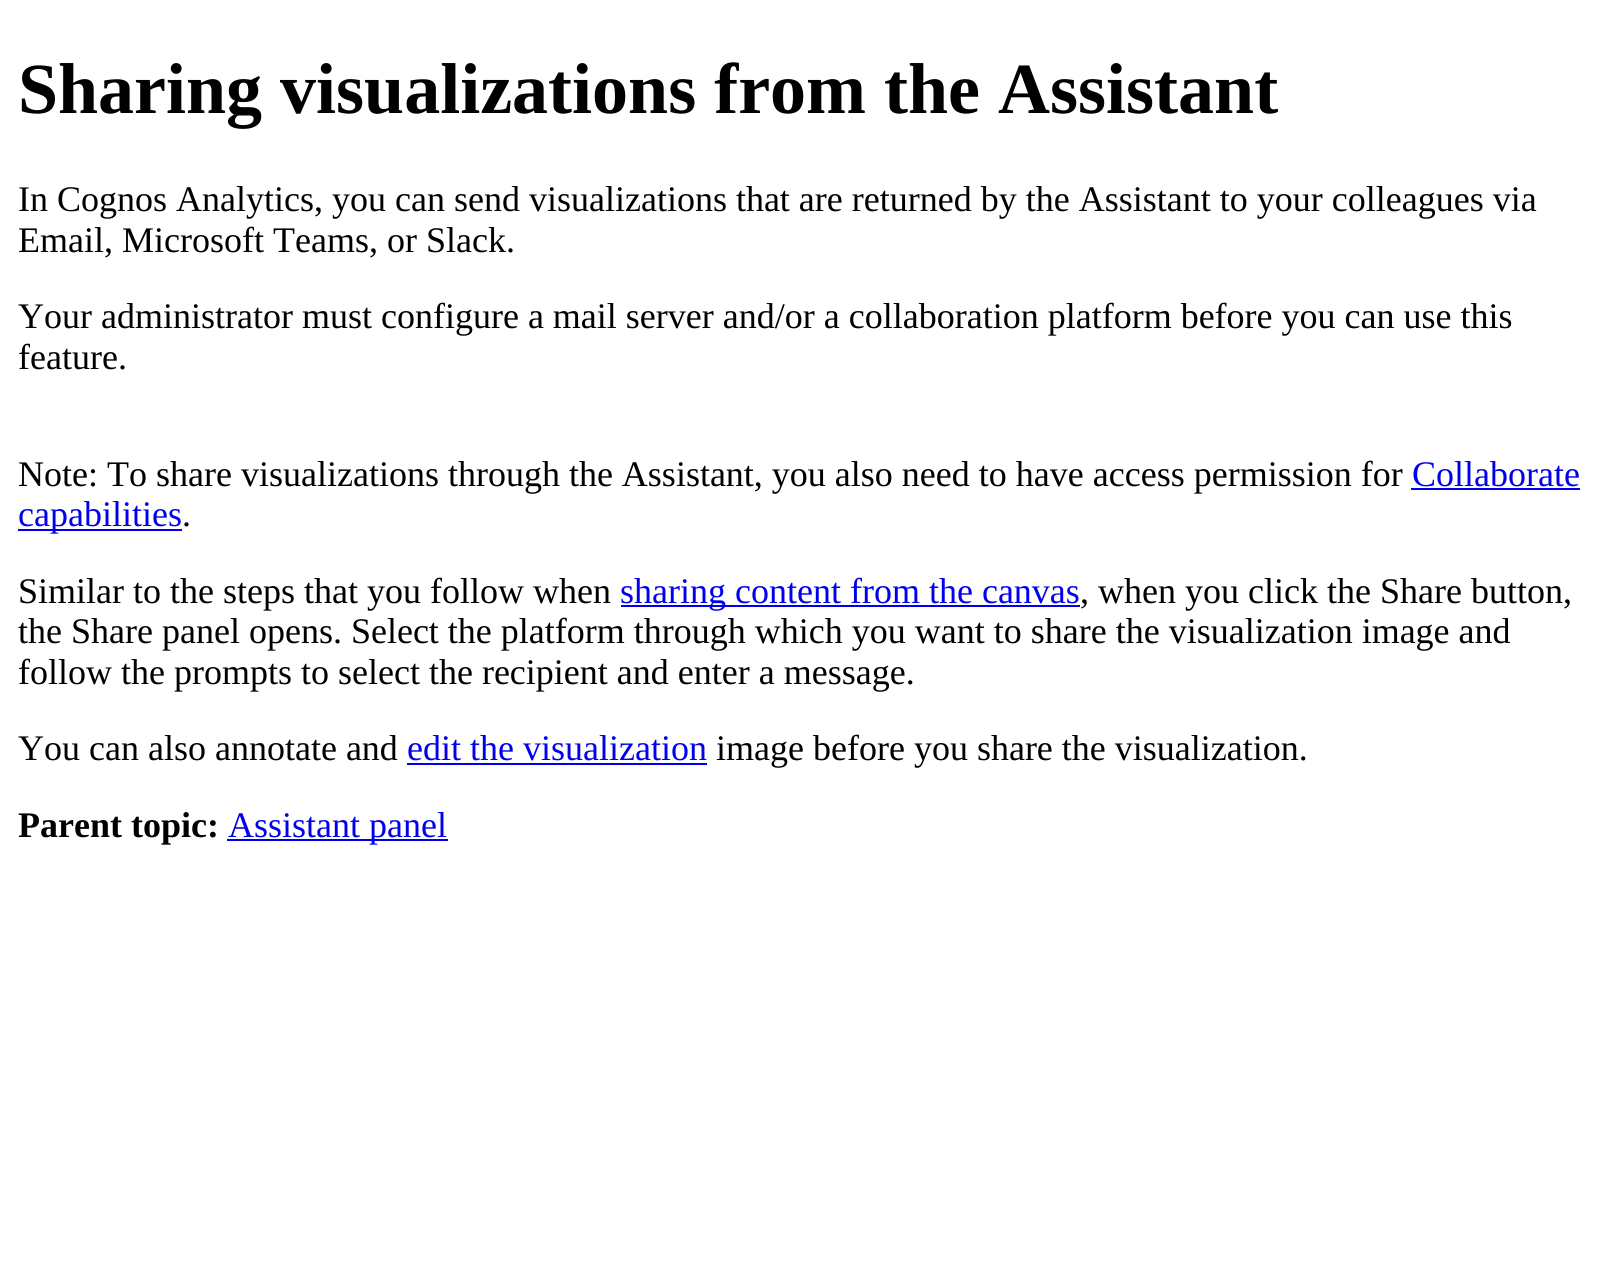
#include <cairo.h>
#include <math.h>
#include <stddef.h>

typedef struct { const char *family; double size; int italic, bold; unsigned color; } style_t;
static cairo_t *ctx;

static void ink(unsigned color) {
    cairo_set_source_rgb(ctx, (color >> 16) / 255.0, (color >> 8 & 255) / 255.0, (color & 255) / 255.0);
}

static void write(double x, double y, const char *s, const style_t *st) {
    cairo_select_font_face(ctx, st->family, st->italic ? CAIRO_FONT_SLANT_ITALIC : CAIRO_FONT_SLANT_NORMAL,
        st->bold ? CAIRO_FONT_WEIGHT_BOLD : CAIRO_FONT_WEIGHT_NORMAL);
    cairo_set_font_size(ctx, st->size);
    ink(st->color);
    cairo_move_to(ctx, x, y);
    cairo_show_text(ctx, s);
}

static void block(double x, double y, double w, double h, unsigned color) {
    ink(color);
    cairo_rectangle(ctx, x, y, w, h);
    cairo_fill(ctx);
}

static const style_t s1 = {"Liberation Serif", 72, 0, 1, 0x000000};
static const style_t s2 = {"Liberation Serif", 36, 0, 0, 0x000000};
static const style_t s3 = {"Liberation Serif", 36, 0, 0, 0x0000ee};
static const style_t s4 = {"Liberation Serif", 36, 0, 1, 0x000000};

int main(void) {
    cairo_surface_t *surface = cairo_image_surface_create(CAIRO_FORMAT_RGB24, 1609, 1280);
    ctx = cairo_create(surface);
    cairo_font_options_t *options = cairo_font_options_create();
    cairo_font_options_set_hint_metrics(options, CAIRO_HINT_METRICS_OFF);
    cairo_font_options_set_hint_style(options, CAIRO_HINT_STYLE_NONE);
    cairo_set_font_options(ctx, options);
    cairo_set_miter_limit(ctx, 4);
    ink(0xffffff);
    cairo_paint(ctx);
    write(18, 113, "Sharing visualizations from the Assistant", &s1);
    write(18, 211, "In Cognos Analytics, you can send visualizations that are returned by the Assistant to your colleagues via", &s2);
    write(18, 252, "Email, Microsoft Teams, or Slack.", &s2);
    write(18, 328, "Your administrator must configure a mail server and/or a collaboration platform before you can use this", &s2);
    write(18, 369, "feature.", &s2);
    write(18, 486, "Note: To share visualizations through the Assistant, you also need to have access permission for", &s2);
    write(1412, 486, "Collaborate", &s3);
    block(1411, 488, 169, 2, 0x0000ee);
    block(18, 529, 164, 2, 0x0000ee);
    write(18, 526, "capabilities", &s3);
    write(182, 526, ".", &s2);
    write(18, 603, "Similar to the steps that you follow when", &s2);
    block(621, 605, 459, 2, 0x0000ee);
    write(620, 603, "sharing content from the canvas", &s3);
    write(1080, 603, ", when you click the Share button,", &s2);
    write(18, 643, "the Share panel opens. Select the platform through which you want to share the visualization image and", &s2);
    write(18, 684, "follow the prompts to select the recipient and enter a message.", &s2);
    write(18, 760, "You can also annotate and", &s2);
    write(407, 760, "edit the visualization", &s3);
    block(407, 763, 300, 2, 0x0000ee);
    write(716, 760, "image before you share the visualization.", &s2);
    write(18, 837, "Parent topic:", &s4);
    block(227, 839, 221, 2, 0x0000ee);
    write(228, 837, "Assistant panel", &s3);
    cairo_surface_write_to_png(surface, "screenshot.png");
    cairo_font_options_destroy(options);
    cairo_destroy(ctx);
    cairo_surface_destroy(surface);
    return 0;
}
